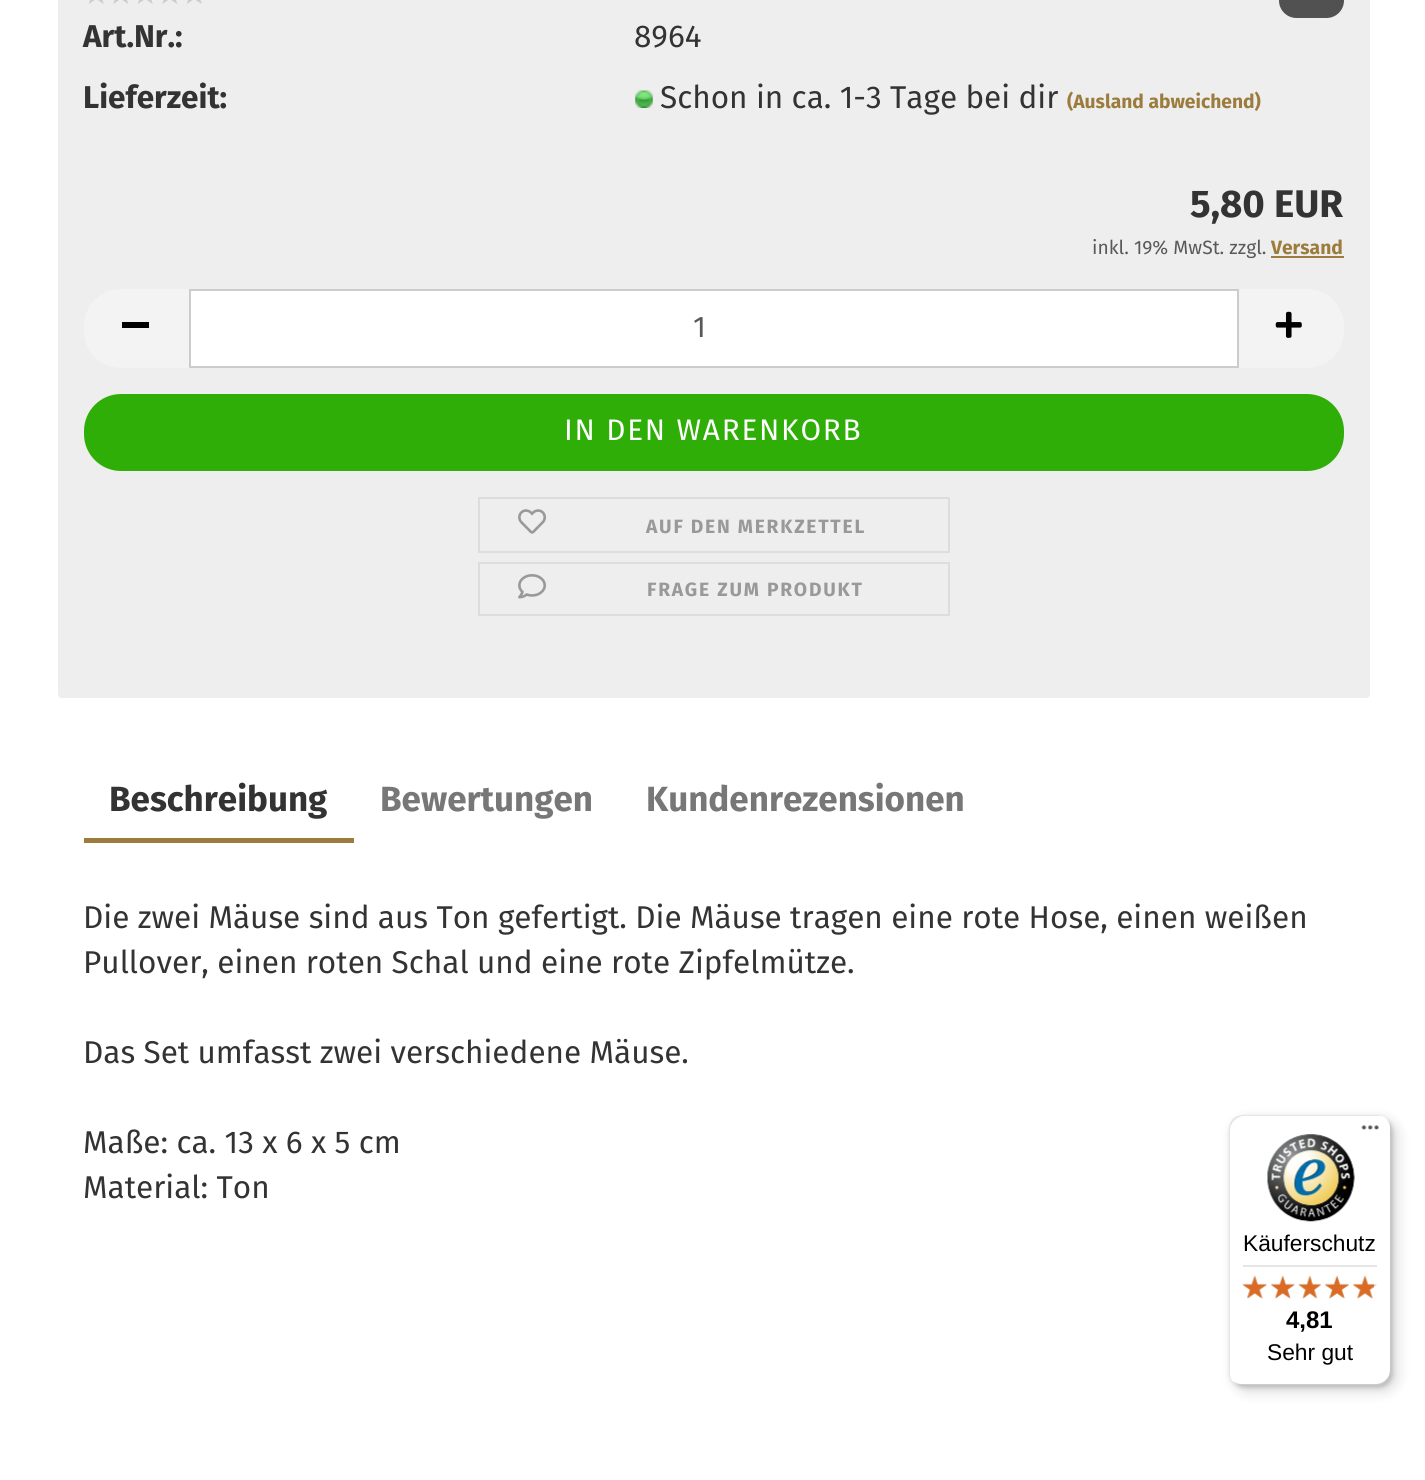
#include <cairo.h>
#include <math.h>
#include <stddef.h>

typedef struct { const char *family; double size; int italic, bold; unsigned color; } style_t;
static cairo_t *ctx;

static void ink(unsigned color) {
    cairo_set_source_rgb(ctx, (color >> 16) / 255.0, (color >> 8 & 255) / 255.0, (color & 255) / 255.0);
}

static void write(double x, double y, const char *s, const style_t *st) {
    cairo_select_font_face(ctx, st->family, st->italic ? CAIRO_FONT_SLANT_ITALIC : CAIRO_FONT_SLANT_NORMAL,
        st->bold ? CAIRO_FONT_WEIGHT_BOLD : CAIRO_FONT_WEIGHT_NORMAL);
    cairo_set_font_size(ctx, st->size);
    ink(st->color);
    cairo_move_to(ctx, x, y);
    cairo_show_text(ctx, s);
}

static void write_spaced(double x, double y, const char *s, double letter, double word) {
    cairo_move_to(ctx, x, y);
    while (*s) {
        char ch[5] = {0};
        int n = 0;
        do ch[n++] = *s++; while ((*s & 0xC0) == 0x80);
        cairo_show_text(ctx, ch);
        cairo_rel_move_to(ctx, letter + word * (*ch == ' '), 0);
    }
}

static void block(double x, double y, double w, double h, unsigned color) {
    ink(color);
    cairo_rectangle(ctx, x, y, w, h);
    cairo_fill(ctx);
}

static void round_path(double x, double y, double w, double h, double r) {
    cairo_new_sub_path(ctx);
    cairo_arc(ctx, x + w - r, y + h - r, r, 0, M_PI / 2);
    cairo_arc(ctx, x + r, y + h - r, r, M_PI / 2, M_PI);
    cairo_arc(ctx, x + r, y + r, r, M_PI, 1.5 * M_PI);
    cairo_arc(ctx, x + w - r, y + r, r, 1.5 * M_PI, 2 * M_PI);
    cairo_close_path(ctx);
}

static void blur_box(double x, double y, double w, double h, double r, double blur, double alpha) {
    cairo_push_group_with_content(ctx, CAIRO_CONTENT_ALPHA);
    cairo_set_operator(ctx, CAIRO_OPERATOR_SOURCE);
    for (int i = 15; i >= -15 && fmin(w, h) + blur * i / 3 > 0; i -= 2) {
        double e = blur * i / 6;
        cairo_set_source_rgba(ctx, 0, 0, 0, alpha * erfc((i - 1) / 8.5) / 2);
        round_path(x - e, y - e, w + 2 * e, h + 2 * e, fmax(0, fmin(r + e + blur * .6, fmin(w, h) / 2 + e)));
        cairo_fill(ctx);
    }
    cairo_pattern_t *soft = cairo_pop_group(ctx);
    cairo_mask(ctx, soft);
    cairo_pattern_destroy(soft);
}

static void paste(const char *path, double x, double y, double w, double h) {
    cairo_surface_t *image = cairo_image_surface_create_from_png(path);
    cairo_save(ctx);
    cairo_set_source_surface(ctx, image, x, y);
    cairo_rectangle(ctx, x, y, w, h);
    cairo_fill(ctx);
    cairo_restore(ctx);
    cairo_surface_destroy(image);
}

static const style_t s1 = {"Fira Sans", 31.5, 0, 1, 0x333333};
static const style_t s2 = {"Fira Sans", 31.5, 0, 0, 0x333333};
static const style_t s3 = {"Fira Sans", 19.25, 0, 1, 0x9c7c3d};
static const style_t s4 = {"Fira Sans", 38.5, 0, 1, 0x333333};
static const style_t s5 = {"Fira Sans", 19.25, 0, 0, 0x595959};
static const style_t s6 = {"Fira Sans", 29.75, 0, 0, 0x595959};
static const style_t s7 = {"Fira Sans", 35, 0, 1, 0x333333};
static const style_t s8 = {"Fira Sans", 35, 0, 1, 0x777777};
static const style_t s9 = {"Liberation Sans", 22.75, 0, 0, 0x000000};
static const style_t s10 = {"Liberation Sans", 24, 0, 1, 0x000000};

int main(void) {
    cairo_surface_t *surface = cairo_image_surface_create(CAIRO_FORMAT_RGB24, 1425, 1480);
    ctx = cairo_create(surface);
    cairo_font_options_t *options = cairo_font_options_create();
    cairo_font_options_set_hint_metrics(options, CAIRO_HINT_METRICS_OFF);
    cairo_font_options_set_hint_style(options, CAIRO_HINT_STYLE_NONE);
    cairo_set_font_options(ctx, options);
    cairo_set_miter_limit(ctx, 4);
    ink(0xffffff);
    cairo_paint(ctx);
    ink(0xeeeeee);
    round_path(58, -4, 1312, 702, 4);
    cairo_fill(ctx);
    paste("pic1.png", 89, 0, 15, 4);
    paste("pic2.png", 113, 0, 16, 4);
    paste("pic1.png", 138, 0, 15, 4);
    paste("pic2.png", 162, 0, 16, 4);
    paste("pic1.png", 187, 0, 15, 4);
    ink(0x515151);
    round_path(1279, -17, 65, 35, 17.5);
    cairo_fill(ctx);
    write(83, 47, "Art.Nr.:", &s1);
    write(634, 47, "8964", &s2);
    write(83, 108, "Lieferzeit:", &s1);
    paste("pic3.png", 635, 90, 18, 18);
    write(660, 108, "Schon in ca. 1-3 Tage bei dir", &s2);
    write(1067, 108, "(Ausland abweichend)", &s3);
    write(1190, 217, "5,80 EUR", &s4);
    write(1092, 254, "inkl. 19% MwSt. zzgl.", &s5);
    write(1271, 254, "Versand", &s3);
    block(1271, 256, 73, 2, 0x9c7c3d);
    ink(0xf3f3f3);
    cairo_new_path(ctx);
    cairo_move_to(ctx, 121, 289);
    cairo_line_to(ctx, 189, 289);
    cairo_line_to(ctx, 189, 368);
    cairo_line_to(ctx, 121, 368);
    cairo_curve_to(ctx, 100.5, 368, 84, 351.5, 84, 331);
    cairo_line_to(ctx, 84, 326);
    cairo_curve_to(ctx, 84, 305.5, 100.5, 289, 121, 289);
    cairo_close_path(ctx);
    cairo_fill(ctx);
    block(122, 322, 27, 6, 0x000000);
    ink(0xffffff);
    cairo_rectangle(ctx, 190, 290, 1048, 77);
    cairo_fill_preserve(ctx);
    ink(0xcccccc);
    cairo_stroke(ctx);
    write(693, 337, "1", &s6);
    ink(0xf3f3f3);
    cairo_new_path(ctx);
    cairo_move_to(ctx, 1239, 289);
    cairo_line_to(ctx, 1307, 289);
    cairo_curve_to(ctx, 1327.5, 289, 1344, 305.5, 1344, 326);
    cairo_line_to(ctx, 1344, 331);
    cairo_curve_to(ctx, 1344, 351.5, 1327.5, 368, 1307, 368);
    cairo_line_to(ctx, 1239, 368);
    cairo_close_path(ctx);
    cairo_fill(ctx);
    paste("pic4.png", 1275, 311, 27, 27);
    ink(0x2eae06);
    round_path(85, 395, 1258, 75, 36);
    cairo_fill_preserve(ctx);
    cairo_stroke(ctx);
    ink(0xffffff);
    write_spaced(564, 440, "IN DEN WARENKORB", 1.75, 0);
    cairo_rectangle(ctx, 479, 498, 470, 54);
    ink(0xdddddd);
    cairo_stroke(ctx);
    paste("pic5.png", 518, 509, 28, 25);
    cairo_select_font_face(ctx, "Fira Sans", CAIRO_FONT_SLANT_NORMAL, CAIRO_FONT_WEIGHT_BOLD);
    cairo_set_font_size(ctx, 19.25);
    ink(0x999999);
    write_spaced(646, 533, "AUF DEN MERKZETTEL", 1.75, 0);
    cairo_rectangle(ctx, 479, 563, 470, 52);
    ink(0xdddddd);
    cairo_stroke(ctx);
    paste("pic6.png", 518, 574, 28, 25);
    ink(0x999999);
    write_spaced(647, 596, "FRAGE ZUM PRODUKT", 1.75, 0);
    block(84, 838, 270, 5, 0x9c7c3d);
    write(109, 811, "Beschreibung", &s7);
    write(380, 811, "Bewertungen", &s8);
    write(646, 811, "Kundenrezensionen", &s8);
    write(83, 928, "Die zwei Mäuse sind aus Ton gefertigt. Die Mäuse tragen eine rote Hose, einen weißen", &s2);
    write(83, 973, "Pullover, einen roten Schal und eine rote Zipfelmütze.", &s2);
    write(83, 1063, "Das Set umfasst zwei verschiedene Mäuse.", &s2);
    write(83, 1153, "Maße: ca. 13 x 6 x 5 cm", &s2);
    write(83, 1198, "Material: Ton", &s2);
    ink(0x000000);
    blur_box(1234, 1120, 163, 271, 14, 7, 0.15);
    blur_box(1230, 1117, 163, 271, 14, 2, 0.15);
    ink(0xffffff);
    round_path(1229, 1115, 162, 271, 14);
    cairo_fill(ctx);
    ink(0xe5e5e5);
    cairo_new_path(ctx);
    cairo_move_to(ctx, 1244, 1116);
    cairo_line_to(ctx, 1379, 1116);
    cairo_curve_to(ctx, 1381, 1116, 1383, 1116, 1384, 1117);
    cairo_curve_to(ctx, 1382, 1116, 1380, 1115, 1377, 1115);
    cairo_line_to(ctx, 1243, 1115);
    cairo_curve_to(ctx, 1235, 1115, 1229, 1121, 1229, 1129);
    cairo_line_to(ctx, 1229, 1372);
    cairo_curve_to(ctx, 1229, 1375, 1230, 1378, 1232, 1381);
    cairo_curve_to(ctx, 1231, 1379, 1230, 1376, 1230, 1374);
    cairo_line_to(ctx, 1230, 1130);
    cairo_curve_to(ctx, 1230, 1123, 1237, 1116, 1244, 1116);
    cairo_close_path(ctx);
    cairo_fill(ctx);
    cairo_set_source_rgba(ctx, 0, 0, 0, 0.2);
    cairo_new_path(ctx);
    cairo_move_to(ctx, 1233, 1381);
    cairo_curve_to(ctx, 1235, 1384, 1239, 1386, 1243, 1386);
    cairo_line_to(ctx, 1377, 1386);
    cairo_curve_to(ctx, 1385, 1386, 1391, 1380, 1391, 1372);
    cairo_line_to(ctx, 1391, 1129);
    cairo_curve_to(ctx, 1391, 1126, 1390, 1124, 1389, 1122);
    cairo_curve_to(ctx, 1390, 1123, 1390, 1125, 1390, 1127);
    cairo_line_to(ctx, 1390, 1370);
    cairo_curve_to(ctx, 1390, 1378, 1383, 1384, 1376, 1384);
    cairo_line_to(ctx, 1241, 1384);
    cairo_curve_to(ctx, 1238, 1384, 1235, 1383, 1233, 1381);
    cairo_close_path(ctx);
    cairo_fill(ctx);
    cairo_set_source_rgba(ctx, 0.196, 0.196, 0.196, 0.2);
    cairo_new_path(ctx);
    cairo_move_to(ctx, 1235, 1384);
    cairo_curve_to(ctx, 1237, 1385, 1240, 1386, 1243, 1386);
    cairo_line_to(ctx, 1377, 1386);
    cairo_curve_to(ctx, 1385, 1386, 1391, 1380, 1391, 1372);
    cairo_line_to(ctx, 1391, 1129);
    cairo_curve_to(ctx, 1391, 1125, 1390, 1122, 1387, 1120);
    cairo_curve_to(ctx, 1389, 1122, 1390, 1125, 1390, 1128);
    cairo_line_to(ctx, 1390, 1371);
    cairo_curve_to(ctx, 1390, 1379, 1384, 1385, 1376, 1385);
    cairo_line_to(ctx, 1241, 1385);
    cairo_curve_to(ctx, 1239, 1385, 1237, 1385, 1235, 1384);
    cairo_close_path(ctx);
    cairo_fill(ctx);
    cairo_set_source_rgba(ctx, 1, 1, 1, 0.3);
    cairo_new_path(ctx);
    cairo_move_to(ctx, 1234, 1382);
    cairo_curve_to(ctx, 1236, 1385, 1239, 1386, 1243, 1386);
    cairo_line_to(ctx, 1377, 1386);
    cairo_curve_to(ctx, 1385, 1386, 1391, 1380, 1391, 1372);
    cairo_line_to(ctx, 1391, 1129);
    cairo_curve_to(ctx, 1391, 1125, 1390, 1122, 1387, 1120);
    cairo_curve_to(ctx, 1389, 1122, 1390, 1125, 1390, 1128);
    cairo_line_to(ctx, 1390, 1371);
    cairo_curve_to(ctx, 1390, 1379, 1384, 1385, 1376, 1385);
    cairo_line_to(ctx, 1242, 1385);
    cairo_curve_to(ctx, 1239, 1385, 1236, 1384, 1234, 1382);
    cairo_close_path(ctx);
    cairo_fill(ctx);
    paste("pic7.png", 1361, 1125, 18, 5);
    paste("pic8.png", 1267, 1134, 88, 88);
    write(1243, 1251, "Käuferschutz", &s9);
    block(1243, 1265, 134, 2, 0xe5e5e5);
    paste("pic14.png", 1242, 1276, 25, 23);
    paste("pic9.png", 1242, 1275, 25, 24);
    paste("pic15.png", 1271, 1276, 24, 23);
    paste("pic10.png", 1270, 1275, 25, 24);
    paste("pic16.png", 1298, 1276, 23, 23);
    paste("pic11.png", 1298, 1275, 24, 24);
    paste("pic17.png", 1325, 1276, 24, 22);
    paste("pic12.png", 1324, 1275, 25, 24);
    paste("pic18.png", 1353, 1276, 24, 23);
    paste("pic13.png", 1352, 1275, 22, 24);
    write(1286, 1328, "4,81", &s10);
    write(1267, 1360, "Sehr gut", &s9);
    cairo_surface_write_to_png(surface, "screenshot.png");
    cairo_font_options_destroy(options);
    cairo_destroy(ctx);
    cairo_surface_destroy(surface);
    return 0;
}
